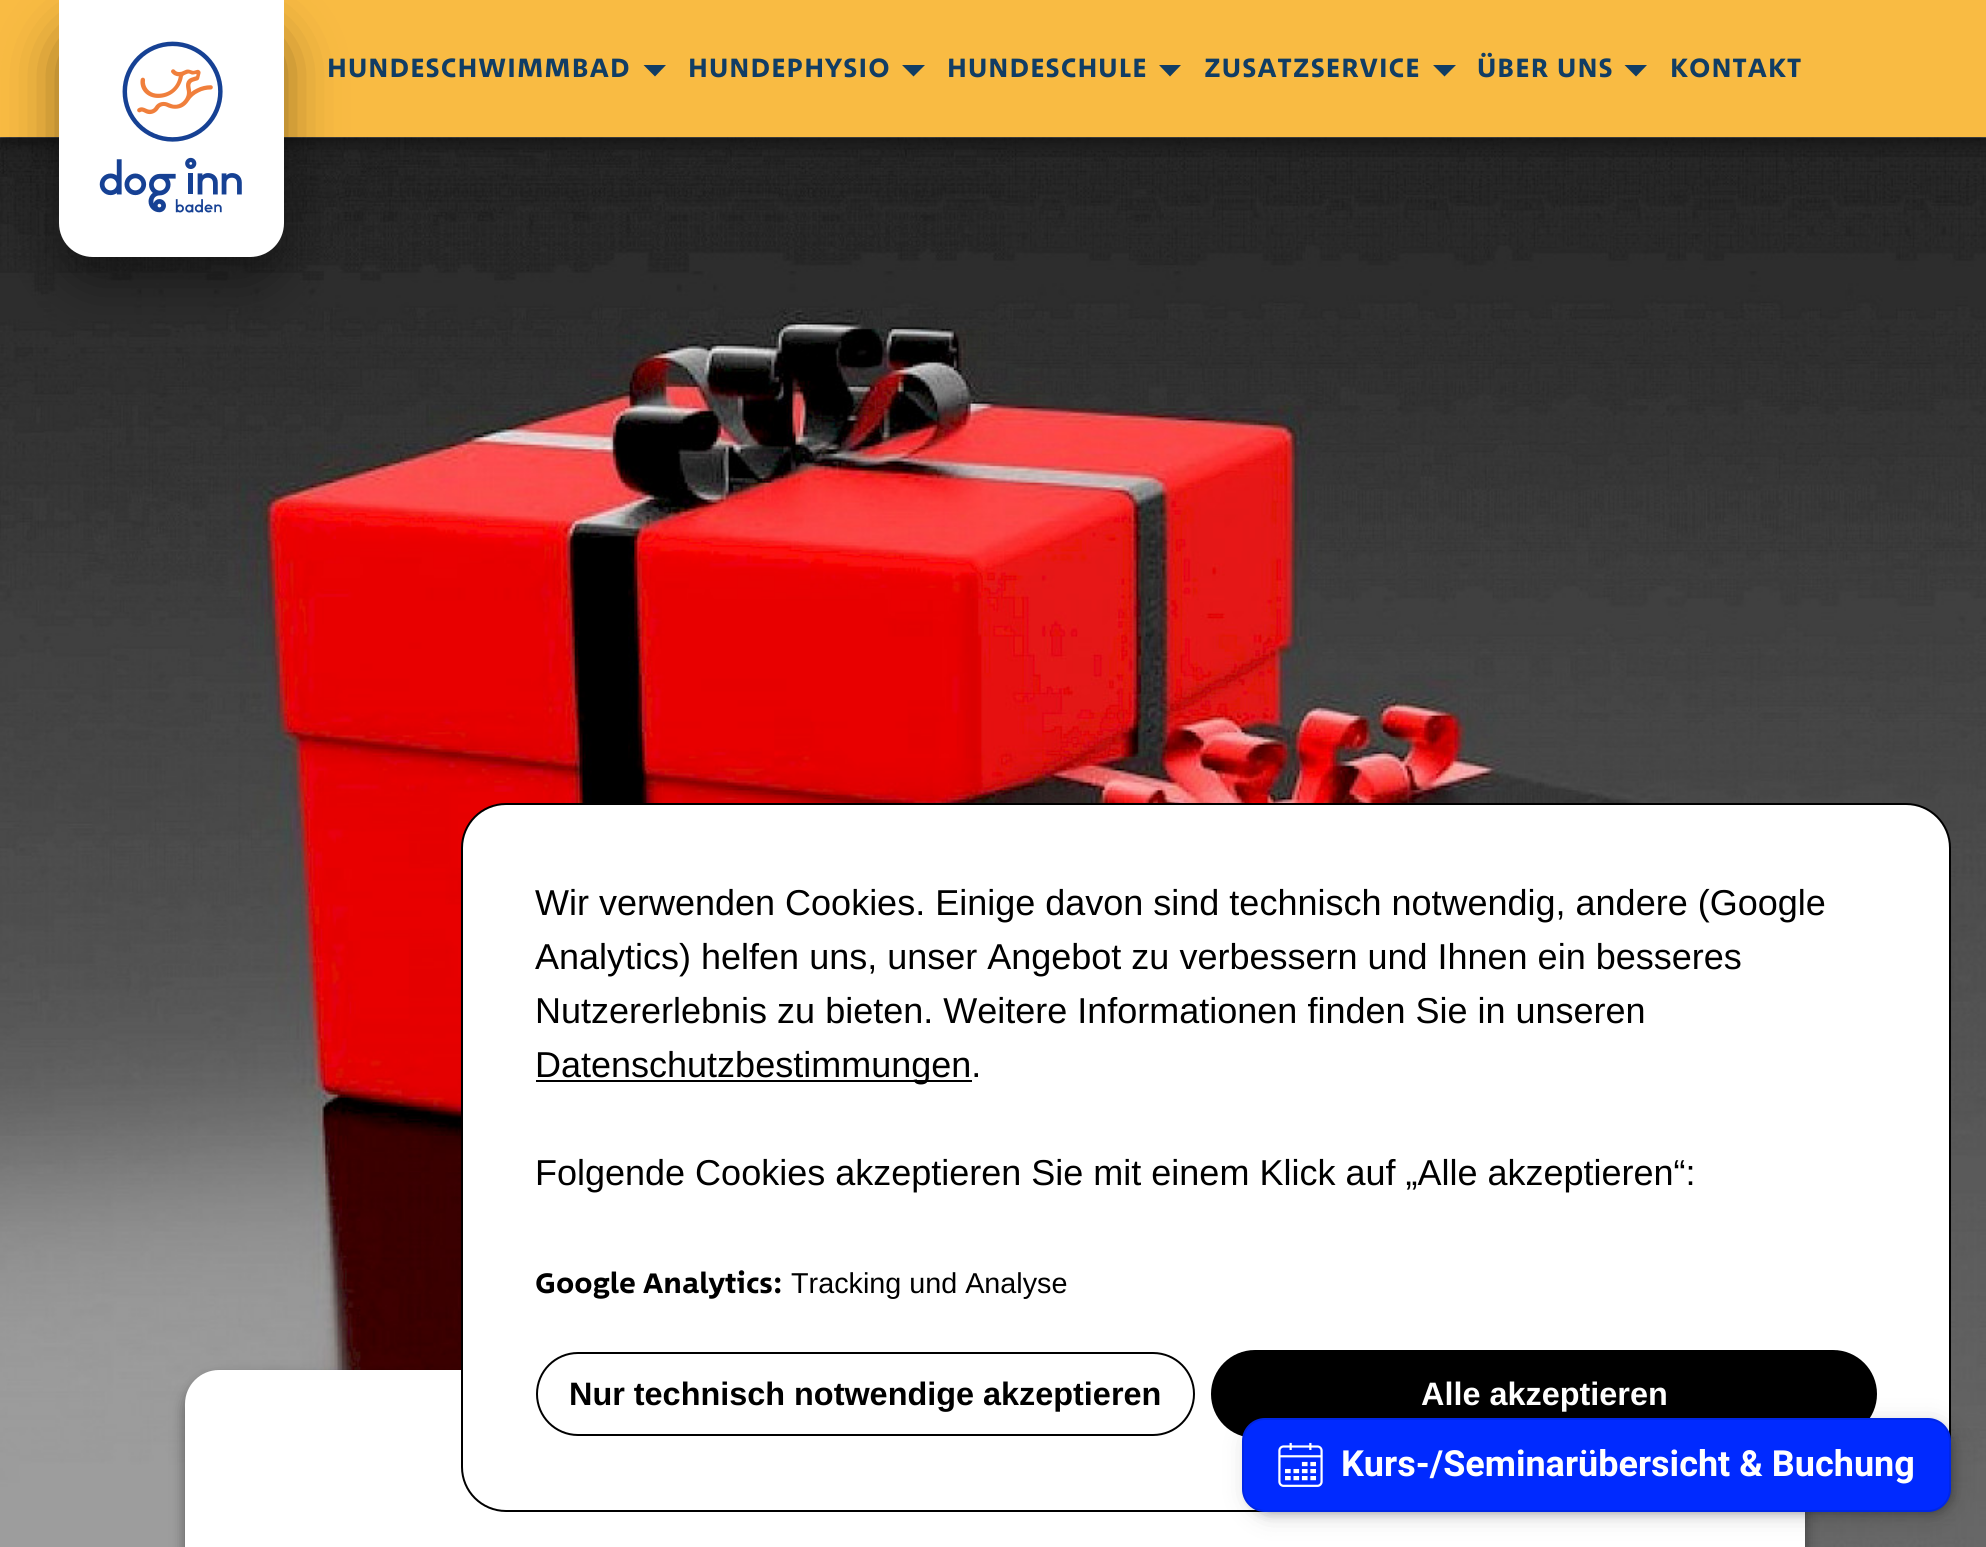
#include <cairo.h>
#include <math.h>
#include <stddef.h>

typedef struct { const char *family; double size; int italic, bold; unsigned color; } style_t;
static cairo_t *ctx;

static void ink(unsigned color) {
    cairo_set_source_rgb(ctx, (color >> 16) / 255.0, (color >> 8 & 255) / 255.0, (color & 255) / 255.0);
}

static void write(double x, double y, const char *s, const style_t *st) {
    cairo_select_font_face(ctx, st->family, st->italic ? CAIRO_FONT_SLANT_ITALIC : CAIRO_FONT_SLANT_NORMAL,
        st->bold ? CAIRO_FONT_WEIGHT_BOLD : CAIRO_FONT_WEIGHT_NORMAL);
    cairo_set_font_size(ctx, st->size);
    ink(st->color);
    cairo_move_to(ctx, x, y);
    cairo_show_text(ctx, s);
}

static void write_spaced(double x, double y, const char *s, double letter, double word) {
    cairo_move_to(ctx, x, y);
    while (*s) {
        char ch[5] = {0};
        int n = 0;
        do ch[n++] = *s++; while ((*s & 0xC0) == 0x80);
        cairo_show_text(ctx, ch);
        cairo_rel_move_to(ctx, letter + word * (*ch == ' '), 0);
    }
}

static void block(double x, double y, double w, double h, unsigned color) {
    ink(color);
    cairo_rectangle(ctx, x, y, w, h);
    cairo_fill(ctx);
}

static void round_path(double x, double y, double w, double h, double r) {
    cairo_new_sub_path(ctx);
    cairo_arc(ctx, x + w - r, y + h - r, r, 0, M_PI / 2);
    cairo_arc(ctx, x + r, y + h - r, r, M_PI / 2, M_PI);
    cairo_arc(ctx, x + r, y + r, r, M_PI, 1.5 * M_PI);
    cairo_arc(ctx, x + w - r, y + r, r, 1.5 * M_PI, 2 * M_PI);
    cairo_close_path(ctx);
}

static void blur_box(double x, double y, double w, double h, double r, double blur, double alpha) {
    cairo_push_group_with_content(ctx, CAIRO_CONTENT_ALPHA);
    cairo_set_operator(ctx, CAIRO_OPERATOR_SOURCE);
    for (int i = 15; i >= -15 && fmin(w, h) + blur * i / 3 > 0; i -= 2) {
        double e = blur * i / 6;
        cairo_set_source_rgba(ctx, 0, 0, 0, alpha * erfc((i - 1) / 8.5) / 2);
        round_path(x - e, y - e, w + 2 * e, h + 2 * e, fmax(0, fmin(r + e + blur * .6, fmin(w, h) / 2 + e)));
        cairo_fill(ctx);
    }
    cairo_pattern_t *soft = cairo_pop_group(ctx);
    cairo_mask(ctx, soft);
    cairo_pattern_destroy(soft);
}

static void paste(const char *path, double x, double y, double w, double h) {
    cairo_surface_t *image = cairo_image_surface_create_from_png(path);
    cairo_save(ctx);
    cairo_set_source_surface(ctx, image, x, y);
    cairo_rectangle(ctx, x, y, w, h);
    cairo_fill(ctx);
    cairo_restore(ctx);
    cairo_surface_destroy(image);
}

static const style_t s1 = {"Liberation Sans", 36, 0, 0, 0x000000};
static const style_t s2 = {"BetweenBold", 28.75, 0, 0, 0x000000};
static const style_t s3 = {"Liberation Sans", 28.75, 0, 0, 0x000000};
static const style_t s4 = {"Liberation Sans", 32.4, 0, 1, 0x000000};
static const style_t s5 = {"Liberation Sans", 32.4, 0, 1, 0xffffff};
static const style_t s6 = {"Roboto", 36, 0, 1, 0xffffff};

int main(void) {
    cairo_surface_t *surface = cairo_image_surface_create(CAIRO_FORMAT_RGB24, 1986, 1547);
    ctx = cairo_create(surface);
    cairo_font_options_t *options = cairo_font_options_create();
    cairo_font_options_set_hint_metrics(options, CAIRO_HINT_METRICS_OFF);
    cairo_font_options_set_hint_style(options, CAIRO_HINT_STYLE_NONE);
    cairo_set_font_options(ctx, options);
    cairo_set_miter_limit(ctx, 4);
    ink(0xffffff);
    cairo_paint(ctx);
    paste("pic2.png", 0, 137, 1986, 1410);
    ink(0x000000);
    blur_box(0, 7, 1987, 137, 0, 7, 0.42);
    block(0, 0, 1986, 137, 0xf9bb43);
    ink(0x000000);
    blur_box(59, 27, 225, 257, 34, 27, 0.43);
    ink(0xffffff);
    cairo_new_path(ctx);
    cairo_move_to(ctx, 59, 0);
    cairo_line_to(ctx, 284, 0);
    cairo_line_to(ctx, 284, 223);
    cairo_curve_to(ctx, 284, 242, 269, 257, 250, 257);
    cairo_line_to(ctx, 93, 257);
    cairo_curve_to(ctx, 74, 257, 59, 242, 59, 223);
    cairo_close_path(ctx);
    cairo_fill(ctx);
    paste("pic1.png", 99, 41, 143, 172);
    cairo_select_font_face(ctx, "BetweenBold", CAIRO_FONT_SLANT_NORMAL, CAIRO_FONT_WEIGHT_NORMAL);
    cairo_set_font_size(ctx, 27);
    ink(0x113d64);
    write_spaced(327, 77, "HUNDESCHWIMMBAD", 1.1, 0);
    cairo_new_path(ctx);
    cairo_move_to(ctx, 643.5, 65);
    cairo_line_to(ctx, 666, 65);
    cairo_line_to(ctx, 655, 76.5);
    cairo_close_path(ctx);
    cairo_fill(ctx);
    write_spaced(688, 77, "HUNDEPHYSIO", 1.1, 0);
    cairo_new_path(ctx);
    cairo_move_to(ctx, 902, 65);
    cairo_line_to(ctx, 925, 65);
    cairo_line_to(ctx, 913.5, 76.5);
    cairo_close_path(ctx);
    cairo_fill(ctx);
    write_spaced(947, 77, "HUNDESCHULE", 1.1, 0);
    cairo_new_path(ctx);
    cairo_move_to(ctx, 1159, 65);
    cairo_line_to(ctx, 1181, 65);
    cairo_line_to(ctx, 1170, 76.5);
    cairo_close_path(ctx);
    cairo_fill(ctx);
    write_spaced(1204, 77, "ZUSATZSERVICE", 1.1, 0);
    cairo_new_path(ctx);
    cairo_move_to(ctx, 1433, 65);
    cairo_line_to(ctx, 1456, 65);
    cairo_line_to(ctx, 1444.5, 76.5);
    cairo_close_path(ctx);
    cairo_fill(ctx);
    write_spaced(1477, 77, "ÜBER UNS", 1.1, 0);
    cairo_new_path(ctx);
    cairo_move_to(ctx, 1624.5, 65);
    cairo_line_to(ctx, 1647, 65);
    cairo_line_to(ctx, 1636, 76.5);
    cairo_close_path(ctx);
    cairo_fill(ctx);
    write_spaced(1670, 77, "KONTAKT", 1.1, 0);
    ink(0x000000);
    blur_box(185, 1377, 1620, 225, 34, 7, 0.42);
    ink(0xffffff);
    round_path(185, 1370, 1620, 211, 34);
    cairo_fill(ctx);
    round_path(462, 804, 1488, 707, 44);
    cairo_fill_preserve(ctx);
    ink(0x000000);
    cairo_stroke(ctx);
    write(535, 915, "Wir verwenden Cookies. Einige davon sind technisch notwendig, andere (Google", &s1);
    write(535, 969, "Analytics) helfen uns, unser Angebot zu verbessern und Ihnen ein besseres", &s1);
    write(535, 1023, "Nutzererlebnis zu bieten. Weitere Informationen finden Sie in unseren", &s1);
    block(536, 1080, 436, 2, 0x000000);
    write(535, 1077, "Datenschutzbestimmungen.", &s1);
    write(535, 1185, "Folgende Cookies akzeptieren Sie mit einem Klick auf „Alle akzeptieren“:", &s1);
    write(535, 1293, "Google Analytics:", &s2);
    write(791, 1293, "Tracking und Analyse", &s3);
    round_path(537, 1353, 657, 82, 41);
    cairo_stroke(ctx);
    write(569, 1405, "Nur technisch notwendige akzeptieren", &s4);
    round_path(1211, 1350, 666, 88, 44);
    cairo_fill(ctx);
    write(1421, 1405, "Alle akzeptieren", &s5);
    ink(0x000000);
    blur_box(1251, 1427, 700, 85, 18, 13.5, 0.2);
    blur_box(1251, 1427, 700, 85, 18, 5.5, 0.3);
    ink(0x002aff);
    round_path(1242, 1418, 709, 94, 23);
    cairo_fill(ctx);
    round_path(1243, 1419, 707, 92, 22);
    cairo_set_source_rgba(ctx, 0, 0, 0, 0.1);
    cairo_stroke(ctx);
    paste("pic3.png", 1278, 1442, 45, 45);
    write(1341, 1476, "Kurs-/Seminarübersicht & Buchung", &s6);
    cairo_surface_write_to_png(surface, "screenshot.png");
    cairo_font_options_destroy(options);
    cairo_destroy(ctx);
    cairo_surface_destroy(surface);
    return 0;
}
